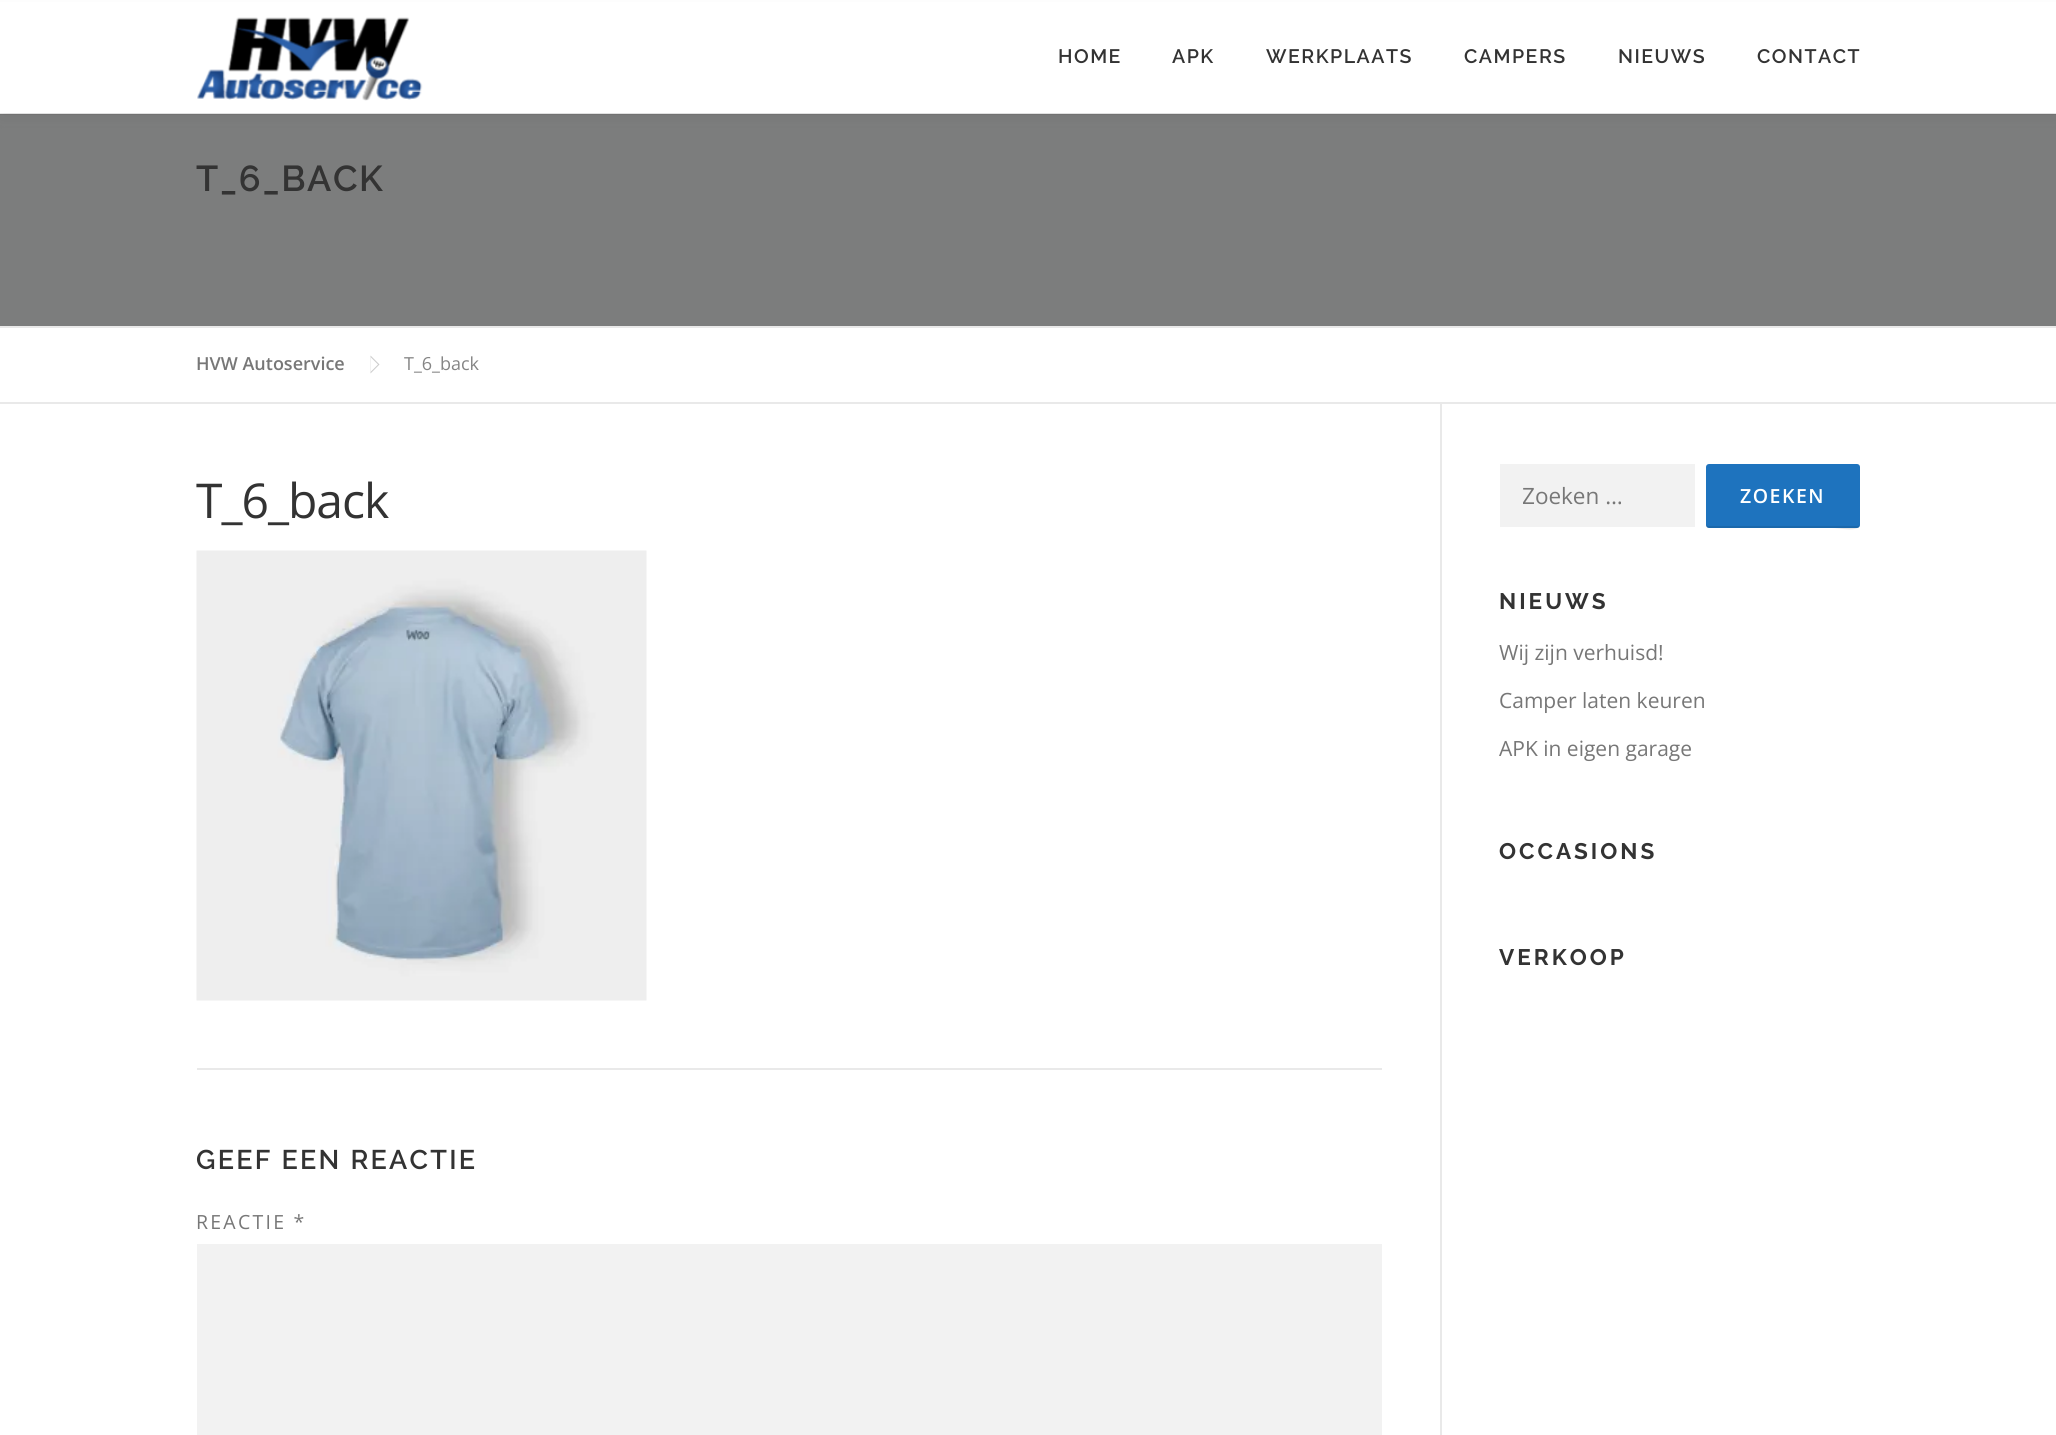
#include <cairo.h>
#include <math.h>
#include <stddef.h>

typedef struct { const char *family; double size; int italic, bold; unsigned color; } style_t;
static cairo_t *ctx;

static void ink(unsigned color) {
    cairo_set_source_rgb(ctx, (color >> 16) / 255.0, (color >> 8 & 255) / 255.0, (color & 255) / 255.0);
}

static void write(double x, double y, const char *s, const style_t *st) {
    cairo_select_font_face(ctx, st->family, st->italic ? CAIRO_FONT_SLANT_ITALIC : CAIRO_FONT_SLANT_NORMAL,
        st->bold ? CAIRO_FONT_WEIGHT_BOLD : CAIRO_FONT_WEIGHT_NORMAL);
    cairo_set_font_size(ctx, st->size);
    ink(st->color);
    cairo_move_to(ctx, x, y);
    cairo_show_text(ctx, s);
}

static void write_spaced(double x, double y, const char *s, double letter, double word) {
    cairo_move_to(ctx, x, y);
    while (*s) {
        char ch[5] = {0};
        int n = 0;
        do ch[n++] = *s++; while ((*s & 0xC0) == 0x80);
        cairo_show_text(ctx, ch);
        cairo_rel_move_to(ctx, letter + word * (*ch == ' '), 0);
    }
}

static void block(double x, double y, double w, double h, unsigned color) {
    ink(color);
    cairo_rectangle(ctx, x, y, w, h);
    cairo_fill(ctx);
}

static void round_path(double x, double y, double w, double h, double r) {
    cairo_new_sub_path(ctx);
    cairo_arc(ctx, x + w - r, y + h - r, r, 0, M_PI / 2);
    cairo_arc(ctx, x + r, y + h - r, r, M_PI / 2, M_PI);
    cairo_arc(ctx, x + r, y + r, r, M_PI, 1.5 * M_PI);
    cairo_arc(ctx, x + w - r, y + r, r, 1.5 * M_PI, 2 * M_PI);
    cairo_close_path(ctx);
}

static void blur_box(double x, double y, double w, double h, double r, double blur, double alpha) {
    cairo_push_group_with_content(ctx, CAIRO_CONTENT_ALPHA);
    cairo_set_operator(ctx, CAIRO_OPERATOR_SOURCE);
    for (int i = 15; i >= -15 && fmin(w, h) + blur * i / 3 > 0; i -= 2) {
        double e = blur * i / 6;
        cairo_set_source_rgba(ctx, 0, 0, 0, alpha * erfc((i - 1) / 8.5) / 2);
        round_path(x - e, y - e, w + 2 * e, h + 2 * e, fmax(0, fmin(r + e + blur * .6, fmin(w, h) / 2 + e)));
        cairo_fill(ctx);
    }
    cairo_pattern_t *soft = cairo_pop_group(ctx);
    cairo_mask(ctx, soft);
    cairo_pattern_destroy(soft);
}

static void paste(const char *path, double x, double y, double w, double h) {
    cairo_surface_t *image = cairo_image_surface_create_from_png(path);
    cairo_save(ctx);
    cairo_set_source_surface(ctx, image, x, y);
    cairo_rectangle(ctx, x, y, w, h);
    cairo_fill(ctx);
    cairo_restore(ctx);
    cairo_surface_destroy(image);
}

static const style_t s1 = {"Open Sans SemiBold", 18, 0, 0, 0x777777};
static const style_t s2 = {"Open Sans", 18, 0, 0, 0x858585};
static const style_t s3 = {"Open Sans", 22.5, 0, 0, 0x777777};
static const style_t s4 = {"Open Sans", 21, 0, 0, 0x777777};

int main(void) {
    cairo_surface_t *surface = cairo_image_surface_create(CAIRO_FORMAT_RGB24, 2056, 1435);
    ctx = cairo_create(surface);
    cairo_font_options_t *options = cairo_font_options_create();
    cairo_font_options_set_hint_metrics(options, CAIRO_HINT_METRICS_OFF);
    cairo_font_options_set_hint_style(options, CAIRO_HINT_STYLE_NONE);
    cairo_set_font_options(ctx, options);
    cairo_set_miter_limit(ctx, 4);
    ink(0xffffff);
    cairo_paint(ctx);
    block(0, 115, 2056, 211, 0x7c7d7d);
    block(0, 113, 2056, 1, 0xe9e9e9);
    block(0, 114, 2056, 1, 0x757575);
    ink(0x323232);
    blur_box(0, 8, 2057, 112, 0, 7.5, 0.06);
    block(0, 2, 2056, 111, 0xffffff);
    paste("pic1.png", 197, 17, 226, 84);
    cairo_select_font_face(ctx, "Raleway SemiBold", CAIRO_FONT_SLANT_NORMAL, CAIRO_FONT_WEIGHT_NORMAL);
    cairo_set_font_size(ctx, 19.5);
    ink(0x333333);
    write_spaced(1058, 63, "HOME", 1.5, 0);
    write_spaced(1172, 63, "APK", 1.5, 0);
    write_spaced(1266, 63, "WERKPLAATS", 1.5, 0);
    write_spaced(1464, 63, "CAMPERS", 1.5, 0);
    write_spaced(1618, 63, "NIEUWS", 1.5, 0);
    write_spaced(1757, 63, "CONTACT", 1.5, 0);
    block(0, 326, 2056, 2, 0xe9e9e9);
    cairo_set_font_size(ctx, 36);
    ink(0x333333);
    write_spaced(196, 191, "T_6_BACK", 1.5, 0);
    block(0, 402, 2056, 2, 0xe9e9e9);
    write(196, 370, "HVW Autoservice", &s1);
    ink(0xcccccc);
    cairo_new_path(ctx);
    cairo_move_to(ctx, 370.5, 373.5);
    cairo_line_to(ctx, 370.5, 355.5);
    cairo_line_to(ctx, 379.5, 364.5);
    cairo_close_path(ctx);
    cairo_fill(ctx);
    ink(0xffffff);
    cairo_new_path(ctx);
    cairo_move_to(ctx, 370.5, 372);
    cairo_line_to(ctx, 370.5, 357);
    cairo_line_to(ctx, 378, 364.5);
    cairo_close_path(ctx);
    cairo_fill(ctx);
    write(404, 370, "T_6_back", &s2);
    block(1440, 404, 2, 1031, 0xe9e9e9);
    cairo_set_font_size(ctx, 48);
    ink(0x333333);
    write_spaced(196, 518, "T_6_back", -1, 0);
    paste("pic2.png", 196, 550, 451, 451);
    block(197, 1068, 1185, 2, 0xe9e9e9);
    cairo_select_font_face(ctx, "Raleway SemiBold", CAIRO_FONT_SLANT_NORMAL, CAIRO_FONT_WEIGHT_NORMAL);
    cairo_set_font_size(ctx, 27);
    ink(0x333333);
    write_spaced(196, 1169, "GEEF EEN REACTIE", 2.25, 0);
    cairo_select_font_face(ctx, "Open Sans", CAIRO_FONT_SLANT_NORMAL, CAIRO_FONT_WEIGHT_NORMAL);
    cairo_set_font_size(ctx, 19.5);
    ink(0x777777);
    write_spaced(196, 1229, "REACTIE *", 2.25, 0);
    block(197, 1244, 1185, 191, 0xf2f2f2);
    block(1500, 464, 195, 63, 0xf2f2f2);
    cairo_save(ctx);
    cairo_rectangle(ctx, 1523, 480, 144, 30);
    cairo_clip(ctx);
    write(1522, 504, "Zoeken …", &s3);
    cairo_restore(ctx);
    ink(0x1e73be);
    round_path(1706, 464, 154, 64, 3);
    cairo_fill(ctx);
    cairo_set_source_rgba(ctx, 0, 0, 0, 0.1);
    cairo_new_path(ctx);
    cairo_move_to(ctx, 1706, 524);
    cairo_curve_to(ctx, 1706, 526, 1706, 527, 1708, 528);
    cairo_line_to(ctx, 1832, 528);
    cairo_curve_to(ctx, 1840, 528, 1860, 533, 1860, 524);
    cairo_curve_to(ctx, 1860, 525, 1859, 526, 1857, 526);
    cairo_line_to(ctx, 1708, 526);
    cairo_curve_to(ctx, 1707, 526, 1706, 525, 1706, 524);
    cairo_close_path(ctx);
    cairo_fill(ctx);
    cairo_select_font_face(ctx, "Open Sans SemiBold", CAIRO_FONT_SLANT_NORMAL, CAIRO_FONT_WEIGHT_NORMAL);
    ink(0xffffff);
    write_spaced(1740, 503, "ZOEKEN", 1.5, 0);
    cairo_select_font_face(ctx, "Raleway", CAIRO_FONT_SLANT_NORMAL, CAIRO_FONT_WEIGHT_BOLD);
    cairo_set_font_size(ctx, 22.5);
    ink(0x333333);
    write_spaced(1499, 609, "NIEUWS", 3, 0);
    write(1499, 660, "Wij zijn verhuisd!", &s4);
    write(1499, 708, "Camper laten keuren", &s4);
    write(1499, 756, "APK in eigen garage", &s4);
    cairo_select_font_face(ctx, "Raleway", CAIRO_FONT_SLANT_NORMAL, CAIRO_FONT_WEIGHT_BOLD);
    cairo_set_font_size(ctx, 22.5);
    ink(0x333333);
    write_spaced(1499, 859, "OCCASIONS", 3, 0);
    write_spaced(1499, 965, "VERKOOP", 3, 0);
    cairo_surface_write_to_png(surface, "screenshot.png");
    cairo_font_options_destroy(options);
    cairo_destroy(ctx);
    cairo_surface_destroy(surface);
    return 0;
}
